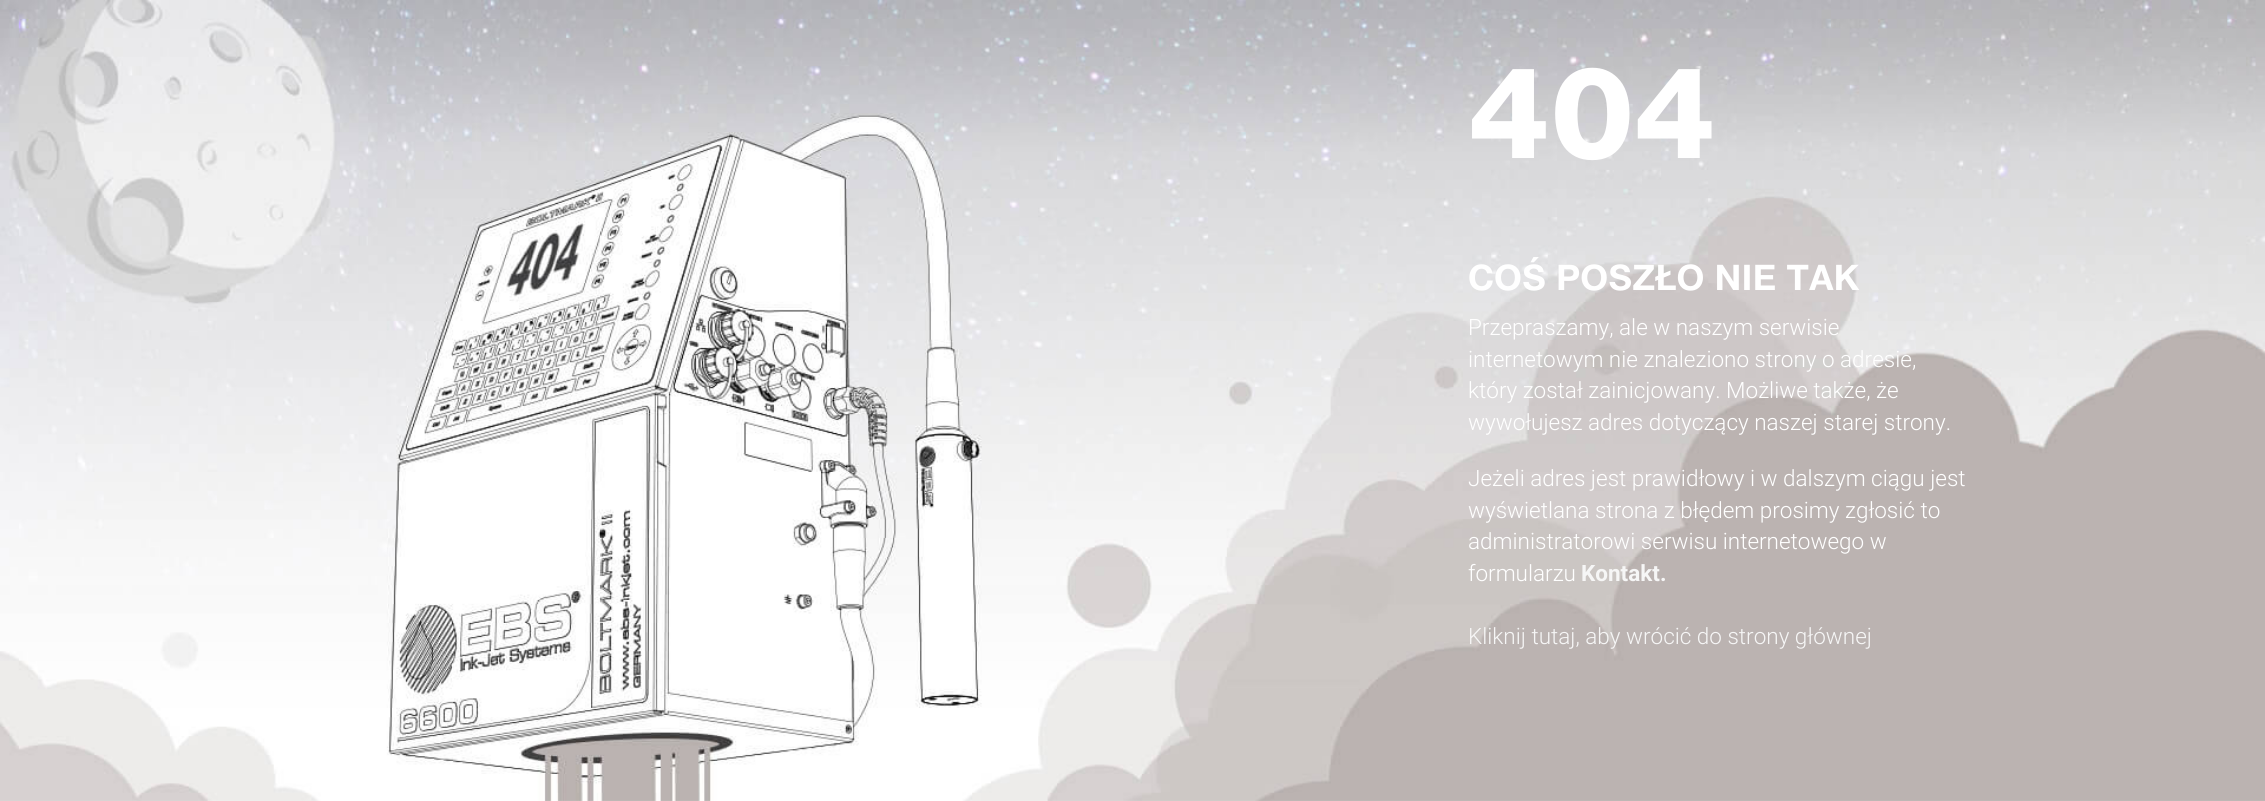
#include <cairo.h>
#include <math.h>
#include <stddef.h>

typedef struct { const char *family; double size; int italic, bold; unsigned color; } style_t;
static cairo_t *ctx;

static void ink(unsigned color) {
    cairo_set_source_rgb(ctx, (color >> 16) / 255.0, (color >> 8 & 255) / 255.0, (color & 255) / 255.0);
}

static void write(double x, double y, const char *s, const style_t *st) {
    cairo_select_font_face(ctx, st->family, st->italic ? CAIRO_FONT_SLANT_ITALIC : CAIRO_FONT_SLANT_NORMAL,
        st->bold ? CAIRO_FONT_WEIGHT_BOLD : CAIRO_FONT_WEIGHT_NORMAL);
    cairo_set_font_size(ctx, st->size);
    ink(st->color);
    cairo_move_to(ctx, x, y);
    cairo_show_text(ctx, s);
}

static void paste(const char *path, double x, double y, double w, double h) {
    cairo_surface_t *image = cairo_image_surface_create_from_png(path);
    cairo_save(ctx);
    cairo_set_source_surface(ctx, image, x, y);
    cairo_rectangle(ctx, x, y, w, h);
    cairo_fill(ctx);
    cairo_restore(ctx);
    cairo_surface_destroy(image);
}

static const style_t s1 = {"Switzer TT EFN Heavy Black", 125, 0, 0, 0xffffff};
static const style_t s2 = {"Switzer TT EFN", 35, 0, 1, 0xffffff};
static const style_t s3 = {"Roboto Light", 22.5, 0, 0, 0xffffff};
static const style_t s4 = {"Roboto", 22.5, 0, 1, 0xf6f6f6};
static const style_t s5 = {"Roboto Light", 22.5, 0, 0, 0xf6f6f6};

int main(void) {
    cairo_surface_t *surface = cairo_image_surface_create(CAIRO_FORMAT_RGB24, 2265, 801);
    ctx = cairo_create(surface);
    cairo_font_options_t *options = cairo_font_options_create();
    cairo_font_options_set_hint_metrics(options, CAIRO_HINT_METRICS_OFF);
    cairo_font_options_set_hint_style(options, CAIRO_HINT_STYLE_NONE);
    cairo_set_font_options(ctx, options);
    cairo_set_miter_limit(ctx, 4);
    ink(0xffffff);
    cairo_paint(ctx);
    paste("pic1.png", 0, 0, 2265, 801);
    write(1468, 158, "404", &s1);
    write(1468, 290, "COŚ POSZŁO NIE TAK", &s2);
    write(1468, 335, "Przepraszamy, ale w naszym serwisie", &s3);
    write(1468, 367, "internetowym nie znaleziono strony o adresie,", &s3);
    write(1468, 398, "który został zainicjowany. Możliwe także, że", &s3);
    write(1468, 430, "wywołujesz adres dotyczący naszej starej strony.", &s3);
    write(1468, 486, "Jeżeli adres jest prawidłowy i w dalszym ciągu jest", &s3);
    write(1468, 518, "wyświetlana strona z błędem prosimy zgłosić to", &s3);
    write(1468, 549, "administratorowi serwisu internetowego w", &s3);
    write(1468, 581, "formularzu", &s3);
    write(1581, 581, "Kontakt.", &s4);
    write(1468, 644, "Kliknij tutaj, aby wrócić do strony głównej", &s5);
    cairo_surface_write_to_png(surface, "screenshot.png");
    cairo_font_options_destroy(options);
    cairo_destroy(ctx);
    cairo_surface_destroy(surface);
    return 0;
}
